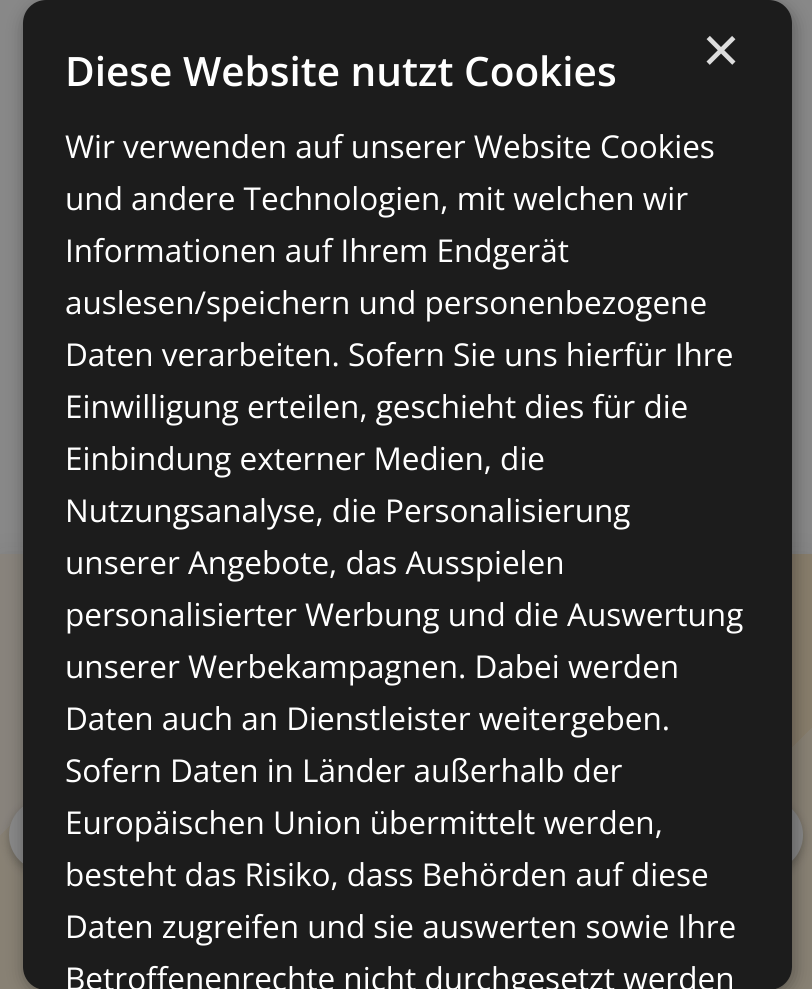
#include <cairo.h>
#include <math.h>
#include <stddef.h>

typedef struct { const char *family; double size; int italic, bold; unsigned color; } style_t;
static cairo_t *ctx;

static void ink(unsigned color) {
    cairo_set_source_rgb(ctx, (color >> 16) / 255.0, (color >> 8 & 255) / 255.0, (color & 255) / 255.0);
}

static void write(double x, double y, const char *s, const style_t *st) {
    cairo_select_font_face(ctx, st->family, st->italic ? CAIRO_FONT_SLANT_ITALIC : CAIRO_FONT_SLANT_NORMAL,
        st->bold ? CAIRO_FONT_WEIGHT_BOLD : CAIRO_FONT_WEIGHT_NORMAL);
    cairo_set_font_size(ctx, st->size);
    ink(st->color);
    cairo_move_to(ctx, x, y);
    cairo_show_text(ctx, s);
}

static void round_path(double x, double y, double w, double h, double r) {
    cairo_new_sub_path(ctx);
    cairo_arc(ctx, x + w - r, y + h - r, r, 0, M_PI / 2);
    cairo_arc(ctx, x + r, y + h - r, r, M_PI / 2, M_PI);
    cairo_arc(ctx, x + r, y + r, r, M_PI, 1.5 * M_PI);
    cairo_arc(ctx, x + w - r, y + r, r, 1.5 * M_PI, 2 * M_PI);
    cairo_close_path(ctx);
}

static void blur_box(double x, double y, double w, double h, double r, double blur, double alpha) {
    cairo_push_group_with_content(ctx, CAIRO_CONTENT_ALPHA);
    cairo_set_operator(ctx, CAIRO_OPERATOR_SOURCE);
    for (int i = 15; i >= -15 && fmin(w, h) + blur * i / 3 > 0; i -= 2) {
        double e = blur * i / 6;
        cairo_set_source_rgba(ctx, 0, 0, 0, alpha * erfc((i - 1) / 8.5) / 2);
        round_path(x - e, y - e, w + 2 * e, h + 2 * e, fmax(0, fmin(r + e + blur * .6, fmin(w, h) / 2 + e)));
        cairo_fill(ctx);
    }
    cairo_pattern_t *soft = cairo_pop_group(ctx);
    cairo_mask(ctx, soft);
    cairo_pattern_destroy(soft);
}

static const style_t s1 = {"Liberation Sans", 65, 0, 0, 0xdddddd};
static const style_t s2 = {"Open Sans SemiBold", 40.5, 0, 0, 0xffffff};
static const style_t s3 = {"Open Sans", 31.5, 0, 0, 0xffffff};

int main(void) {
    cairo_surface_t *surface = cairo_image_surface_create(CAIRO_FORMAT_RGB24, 812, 989);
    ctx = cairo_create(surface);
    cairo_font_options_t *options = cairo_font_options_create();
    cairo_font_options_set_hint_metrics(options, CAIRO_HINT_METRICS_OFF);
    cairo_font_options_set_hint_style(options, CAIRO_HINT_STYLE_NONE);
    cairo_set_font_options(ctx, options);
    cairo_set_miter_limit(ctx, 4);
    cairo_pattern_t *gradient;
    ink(0x888888);
    cairo_paint(ctx);
    ink(0x191919);
    blur_box(0, 558, 812, 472, 0, 13.5, 0.1);
    gradient = cairo_pattern_create_linear(54, 500, 758, 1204);
    cairo_pattern_add_color_stop_rgba(gradient, 0, 0.533, 0.514, 0.486, 1);
    cairo_pattern_add_color_stop_rgba(gradient, 0.2, 0.533, 0.514, 0.486, 1);
    cairo_pattern_add_color_stop_rgba(gradient, 0.2, 0.533, 0.506, 0.455, 1);
    cairo_pattern_add_color_stop_rgba(gradient, 0.45, 0.533, 0.506, 0.455, 1);
    cairo_pattern_add_color_stop_rgba(gradient, 0.45, 0.529, 0.49, 0.42, 1);
    cairo_pattern_add_color_stop_rgba(gradient, 0.7, 0.529, 0.49, 0.42, 1);
    cairo_pattern_add_color_stop_rgba(gradient, 0.7, 0.533, 0.506, 0.455, 1);
    cairo_pattern_add_color_stop_rgba(gradient, 1, 0.533, 0.506, 0.455, 1);
    cairo_set_source(ctx, gradient);
    cairo_pattern_destroy(gradient);
    cairo_rectangle(ctx, 0, 554, 812, 435);
    cairo_fill(ctx);
    ink(0x191919);
    blur_box(9, 803, 72, 72, 36, 4.5, 0.3);
    ink(0x888888);
    cairo_arc(ctx, 45, 835, 36, 0, 2 * M_PI);
    cairo_fill(ctx);
    ink(0x191919);
    blur_box(731, 803, 72, 72, 36, 4.5, 0.3);
    ink(0x888888);
    cairo_arc(ctx, 767, 835, 36, 0, 2 * M_PI);
    cairo_fill(ctx);
    cairo_save(ctx);
    cairo_set_fill_rule(ctx, CAIRO_FILL_RULE_EVEN_ODD);
    cairo_new_path(ctx);
    cairo_move_to(ctx, 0, 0);
    cairo_line_to(ctx, 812, 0);
    cairo_line_to(ctx, 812, 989);
    cairo_line_to(ctx, 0, 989);
    cairo_close_path(ctx);
    cairo_move_to(ctx, 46, 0);
    cairo_line_to(ctx, 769, 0);
    cairo_curve_to(ctx, 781.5, 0, 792, 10.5, 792, 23);
    cairo_line_to(ctx, 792, 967);
    cairo_curve_to(ctx, 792, 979.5, 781.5, 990, 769, 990);
    cairo_line_to(ctx, 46, 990);
    cairo_curve_to(ctx, 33.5, 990, 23, 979.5, 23, 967);
    cairo_line_to(ctx, 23, 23);
    cairo_curve_to(ctx, 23, 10.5, 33.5, 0, 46, 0);
    cairo_close_path(ctx);
    cairo_clip(ctx);
    ink(0x000000);
    blur_box(25, 5, 769, 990, 23, 9, 0.35);
    cairo_restore(ctx);
    ink(0x1c1c1c);
    round_path(23, 0, 769, 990, 23);
    cairo_fill(ctx);
    write(702, 72, "×", &s1);
    write(65, 86, "Diese Website nutzt Cookies", &s2);
    write(65, 158, "Wir verwenden auf unserer Website Cookies", &s3);
    write(65, 210, "und andere Technologien, mit welchen wir", &s3);
    write(65, 262, "Informationen auf Ihrem Endgerät", &s3);
    write(65, 314, "auslesen/speichern und personenbezogene", &s3);
    write(65, 366, "Daten verarbeiten. Sofern Sie uns hierfür Ihre", &s3);
    write(65, 418, "Einwilligung erteilen, geschieht dies für die", &s3);
    write(65, 470, "Einbindung externer Medien, die", &s3);
    write(65, 522, "Nutzungsanalyse, die Personalisierung", &s3);
    write(65, 574, "unserer Angebote, das Ausspielen", &s3);
    write(65, 626, "personalisierter Werbung und die Auswertung", &s3);
    write(65, 678, "unserer Werbekampagnen. Dabei werden", &s3);
    write(65, 730, "Daten auch an Dienstleister weitergeben.", &s3);
    write(65, 782, "Sofern Daten in Länder außerhalb der", &s3);
    write(65, 834, "Europäischen Union übermittelt werden,", &s3);
    write(65, 886, "besteht das Risiko, dass Behörden auf diese", &s3);
    write(65, 938, "Daten zugreifen und sie auswerten sowie Ihre", &s3);
    write(65, 990, "Betroffenenrechte nicht durchgesetzt werden", &s3);
    cairo_surface_write_to_png(surface, "screenshot.png");
    cairo_font_options_destroy(options);
    cairo_destroy(ctx);
    cairo_surface_destroy(surface);
    return 0;
}
